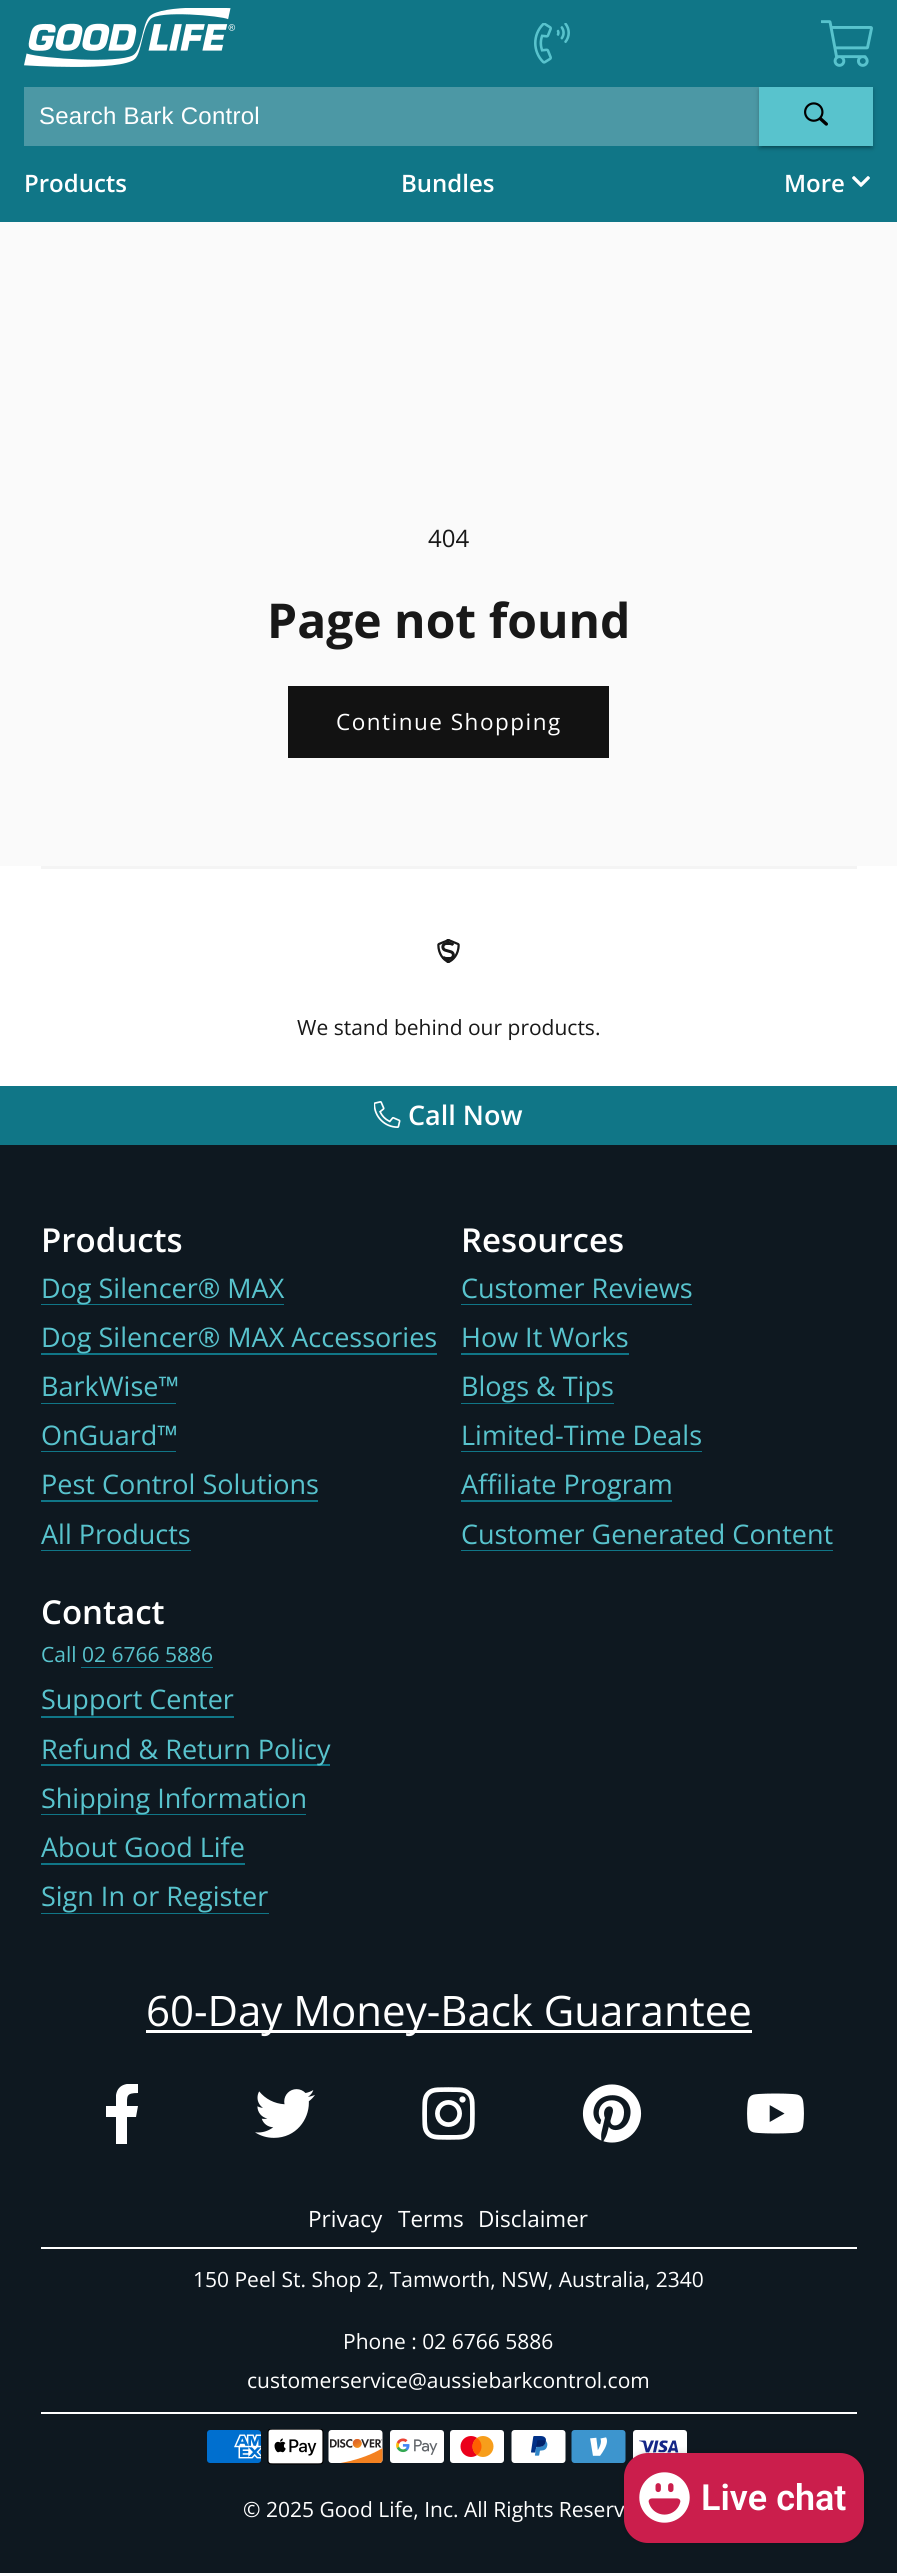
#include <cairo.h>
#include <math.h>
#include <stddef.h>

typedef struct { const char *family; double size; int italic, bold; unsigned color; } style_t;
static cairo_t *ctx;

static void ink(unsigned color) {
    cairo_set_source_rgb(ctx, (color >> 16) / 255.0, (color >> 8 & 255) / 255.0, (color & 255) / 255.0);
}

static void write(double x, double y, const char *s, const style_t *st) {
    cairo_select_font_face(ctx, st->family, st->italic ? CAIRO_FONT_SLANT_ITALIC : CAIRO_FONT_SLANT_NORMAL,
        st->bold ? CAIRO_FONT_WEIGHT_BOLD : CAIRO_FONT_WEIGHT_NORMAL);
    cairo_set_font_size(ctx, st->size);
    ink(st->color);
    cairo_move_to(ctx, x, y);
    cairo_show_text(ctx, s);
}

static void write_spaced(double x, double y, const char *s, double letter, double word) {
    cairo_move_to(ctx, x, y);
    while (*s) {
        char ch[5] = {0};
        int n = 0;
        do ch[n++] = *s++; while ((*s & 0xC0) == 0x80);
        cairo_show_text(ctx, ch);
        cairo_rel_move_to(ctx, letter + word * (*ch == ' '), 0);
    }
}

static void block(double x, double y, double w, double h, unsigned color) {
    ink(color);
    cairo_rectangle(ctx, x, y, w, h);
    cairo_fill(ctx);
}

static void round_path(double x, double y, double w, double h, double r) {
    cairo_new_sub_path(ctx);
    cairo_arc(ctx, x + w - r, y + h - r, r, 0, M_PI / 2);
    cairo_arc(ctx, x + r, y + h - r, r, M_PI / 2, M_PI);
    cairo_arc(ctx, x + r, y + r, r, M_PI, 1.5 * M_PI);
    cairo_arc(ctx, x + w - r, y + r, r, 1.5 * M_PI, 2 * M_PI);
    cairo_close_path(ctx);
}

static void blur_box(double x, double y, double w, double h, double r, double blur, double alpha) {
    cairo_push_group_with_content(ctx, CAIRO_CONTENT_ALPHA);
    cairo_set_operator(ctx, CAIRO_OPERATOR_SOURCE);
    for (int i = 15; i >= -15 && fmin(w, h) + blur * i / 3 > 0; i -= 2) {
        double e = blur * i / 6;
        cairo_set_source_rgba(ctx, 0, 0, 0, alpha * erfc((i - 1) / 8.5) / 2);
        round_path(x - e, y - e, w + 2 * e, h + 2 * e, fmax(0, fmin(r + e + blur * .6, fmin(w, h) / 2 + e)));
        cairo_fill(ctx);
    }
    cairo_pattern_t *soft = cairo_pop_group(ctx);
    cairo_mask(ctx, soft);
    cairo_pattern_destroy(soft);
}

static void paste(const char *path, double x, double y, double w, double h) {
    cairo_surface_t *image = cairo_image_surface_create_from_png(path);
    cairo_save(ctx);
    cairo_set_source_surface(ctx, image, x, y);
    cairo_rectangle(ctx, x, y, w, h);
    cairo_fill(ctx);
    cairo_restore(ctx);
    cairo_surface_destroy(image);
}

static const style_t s1 = {"Open Sans SemiBold", 24, 0, 0, 0xffffff};
static const style_t s2 = {"Open Sans", 24, 0, 0, 0x181818};
static const style_t s3 = {"Open Sans", 48, 0, 1, 0x181818};
static const style_t s4 = {"Open Sans", 21, 0, 0, 0x181818};
static const style_t s5 = {"Open Sans SemiBold", 27, 0, 0, 0xffffff};
static const style_t s6 = {"Open Sans SemiBold", 33, 0, 0, 0xffffff};
static const style_t s7 = {"Open Sans", 27, 0, 0, 0x58c3cd};
static const style_t s8 = {"Open Sans", 21, 0, 0, 0x58c3cd};
static const style_t s9 = {"Open Sans", 42, 0, 0, 0xffffff};
static const style_t s10 = {"Open Sans", 22.5, 0, 0, 0xffffff};
static const style_t s11 = {"Open Sans", 21, 0, 0, 0xffffff};
static const style_t s12 = {"Roboto SemiBold", 36, 0, 0, 0xffffff};

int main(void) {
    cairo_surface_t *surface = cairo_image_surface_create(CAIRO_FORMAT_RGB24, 897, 2573);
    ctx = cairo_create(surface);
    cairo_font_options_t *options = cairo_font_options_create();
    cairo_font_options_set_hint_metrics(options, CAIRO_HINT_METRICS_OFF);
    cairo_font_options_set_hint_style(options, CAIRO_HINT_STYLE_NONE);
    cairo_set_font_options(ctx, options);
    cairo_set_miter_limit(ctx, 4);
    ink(0xfafafa);
    cairo_paint(ctx);
    block(0, 0, 897, 222, 0x107687);
    paste("pic1.png", 24, 8, 212, 59);
    paste("pic2.png", 534, 23, 36, 41);
    paste("pic3.png", 821, 20, 52, 47);
    block(24, 87, 735, 59, 0x4c98a5);
    cairo_select_font_face(ctx, "Liberation Sans", CAIRO_FONT_SLANT_NORMAL, CAIRO_FONT_WEIGHT_NORMAL);
    cairo_set_font_size(ctx, 24);
    ink(0xffffff);
    write_spaced(39, 124, "Search Bark Control", 0.25, 0);
    ink(0x000000);
    blur_box(762, 95, 108, 52, 0, 1, 0.2);
    blur_box(759, 89, 114, 58, 0, 3.5, 0.12);
    blur_box(759, 90, 114, 59, 0, 1.5, 0.14);
    block(759, 87, 114, 59, 0x58c3cd);
    paste("pic4.png", 804, 102, 24, 24);
    write(24, 192, "Products", &s1);
    write(401, 192, "Bundles", &s1);
    write(784, 192, "More", &s1);
    paste("pic5.png", 852, 176, 18, 11);
    write(428, 547, "404", &s2);
    write(267, 638, "Page not found", &s3);
    cairo_rectangle(ctx, 289, 687, 319, 70);
    ink(0x121212);
    cairo_stroke(ctx);
    block(290, 688, 317, 68, 0x121212);
    cairo_select_font_face(ctx, "Open Sans", CAIRO_FONT_SLANT_NORMAL, CAIRO_FONT_WEIGHT_NORMAL);
    cairo_set_font_size(ctx, 22.5);
    ink(0xffffff);
    write_spaced(336, 730, "Continue Shopping", 1.5, 0);
    block(0, 866, 897, 220, 0xffffff);
    block(41, 866, 816, 3, 0xf4f4f4);
    paste("pic6.png", 437, 939, 23, 24);
    paste("pic7.png", 441, 939, 14, 24);
    write(297, 1035, "We stand behind our products.", &s4);
    block(0, 1145, 897, 1428, 0x0e1820);
    block(0, 1086, 897, 59, 0x107687);
    paste("pic8.png", 374, 1101, 27, 27);
    write(408, 1125, "Call Now", &s5);
    write(41, 1252, "Products", &s6);
    block(41, 1304, 243, 1, 0x107687);
    write(41, 1298, "Dog Silencer® MAX", &s7);
    block(41, 1353, 396, 2, 0x107687);
    write(41, 1347, "Dog Silencer® MAX Accessories", &s7);
    write(41, 1396, "BarkWise™", &s7);
    block(41, 1403, 135, 1, 0x107687);
    write(41, 1445, "OnGuard™", &s7);
    block(41, 1451, 135, 1, 0x107687);
    write(41, 1494, "Pest Control Solutions", &s7);
    block(41, 1500, 277, 2, 0x107687);
    write(41, 1544, "All Products", &s7);
    block(41, 1550, 150, 1, 0x107687);
    write(461, 1252, "Resources", &s6);
    write(461, 1298, "Customer Reviews", &s7);
    block(461, 1304, 231, 1, 0x107687);
    write(461, 1347, "How It Works", &s7);
    block(461, 1353, 168, 2, 0x107687);
    write(461, 1396, "Blogs & Tips", &s7);
    block(461, 1403, 153, 1, 0x107687);
    write(461, 1445, "Limited-Time Deals", &s7);
    block(461, 1451, 241, 1, 0x107687);
    block(461, 1500, 211, 2, 0x107687);
    write(461, 1494, "Affiliate Program", &s7);
    write(461, 1544, "Customer Generated Content", &s7);
    block(461, 1550, 372, 1, 0x107687);
    write(41, 1624, "Contact", &s6);
    write(41, 1662, "Call 02 6766 5886", &s8);
    block(81, 1667, 132, 1, 0x107687);
    write(41, 1709, "Support Center", &s7);
    block(41, 1716, 193, 2, 0x107687);
    block(41, 1764, 289, 2, 0x107687);
    write(41, 1759, "Refund & Return Policy", &s7);
    block(41, 1814, 265, 1, 0x107687);
    write(41, 1808, "Shipping Information", &s7);
    write(41, 1857, "About Good Life", &s7);
    block(41, 1863, 204, 2, 0x107687);
    write(41, 1906, "Sign In or Register", &s7);
    block(41, 1913, 228, 1, 0x107687);
    block(146, 2030, 606, 3, 0xffffff);
    write(146, 2026, "60-Day Money-Back Guarantee", &s9);
    cairo_save(ctx);
    cairo_rectangle(ctx, 104, 2084, 37, 60);
    cairo_clip(ctx);
    cairo_new_path(ctx);
    cairo_move_to(ctx, 136, 2117);
    cairo_line_to(ctx, 138, 2106);
    cairo_line_to(ctx, 127, 2106);
    cairo_curve_to(ctx, 127, 2096, 126, 2093, 138, 2093);
    cairo_line_to(ctx, 138, 2084);
    cairo_curve_to(ctx, 129, 2083, 118, 2083, 116, 2095);
    cairo_line_to(ctx, 116, 2106);
    cairo_line_to(ctx, 106, 2106);
    cairo_line_to(ctx, 106, 2117);
    cairo_line_to(ctx, 116, 2117);
    cairo_line_to(ctx, 116, 2144);
    cairo_line_to(ctx, 127, 2144);
    cairo_line_to(ctx, 127, 2117);
    cairo_close_path(ctx);
    cairo_fill(ctx);
    cairo_restore(ctx);
    paste("pic9.png", 255, 2089, 60, 49);
    paste("pic10.png", 422, 2087, 53, 53);
    paste("pic11.png", 582, 2084, 60, 59);
    paste("pic12.png", 747, 2093, 57, 41);
    write(308, 2227, "Privacy", &s10);
    write(398, 2227, "Terms", &s10);
    write(478, 2227, "Disclaimer", &s10);
    block(41, 2247, 816, 2, 0xffffff);
    write(193, 2287, "150 Peel St. Shop 2, Tamworth, NSW, Australia, 2340", &s11);
    block(41, 2412, 816, 2, 0xffffff);
    write(343, 2349, "Phone : 02 6766 5886", &s11);
    write(247, 2388, "customerservice@aussiebarkcontrol.com", &s11);
    paste("pic13.png", 207, 2430, 54, 33);
    paste("pic14.png", 267, 2429, 57, 36);
    paste("pic15.png", 328, 2430, 55, 33);
    paste("pic16.png", 390, 2430, 54, 33);
    paste("pic17.png", 450, 2430, 54, 33);
    paste("pic18.png", 511, 2430, 55, 33);
    paste("pic19.png", 571, 2430, 55, 33);
    paste("pic20.png", 633, 2430, 54, 29);
    write(243, 2517, "© 2025 Good Life, Inc. All Rights Reserv", &s11);
    ink(0x000000);
    blur_box(624, 2453, 240, 90, 24, 4, 0.15);
    ink(0xcb1e4c);
    round_path(624, 2453, 240, 90, 24);
    cairo_fill(ctx);
    paste("pic21.png", 639, 2472, 51, 51);
    write(701, 2510, "Live chat", &s12);
    cairo_surface_write_to_png(surface, "screenshot.png");
    cairo_font_options_destroy(options);
    cairo_destroy(ctx);
    cairo_surface_destroy(surface);
    return 0;
}
